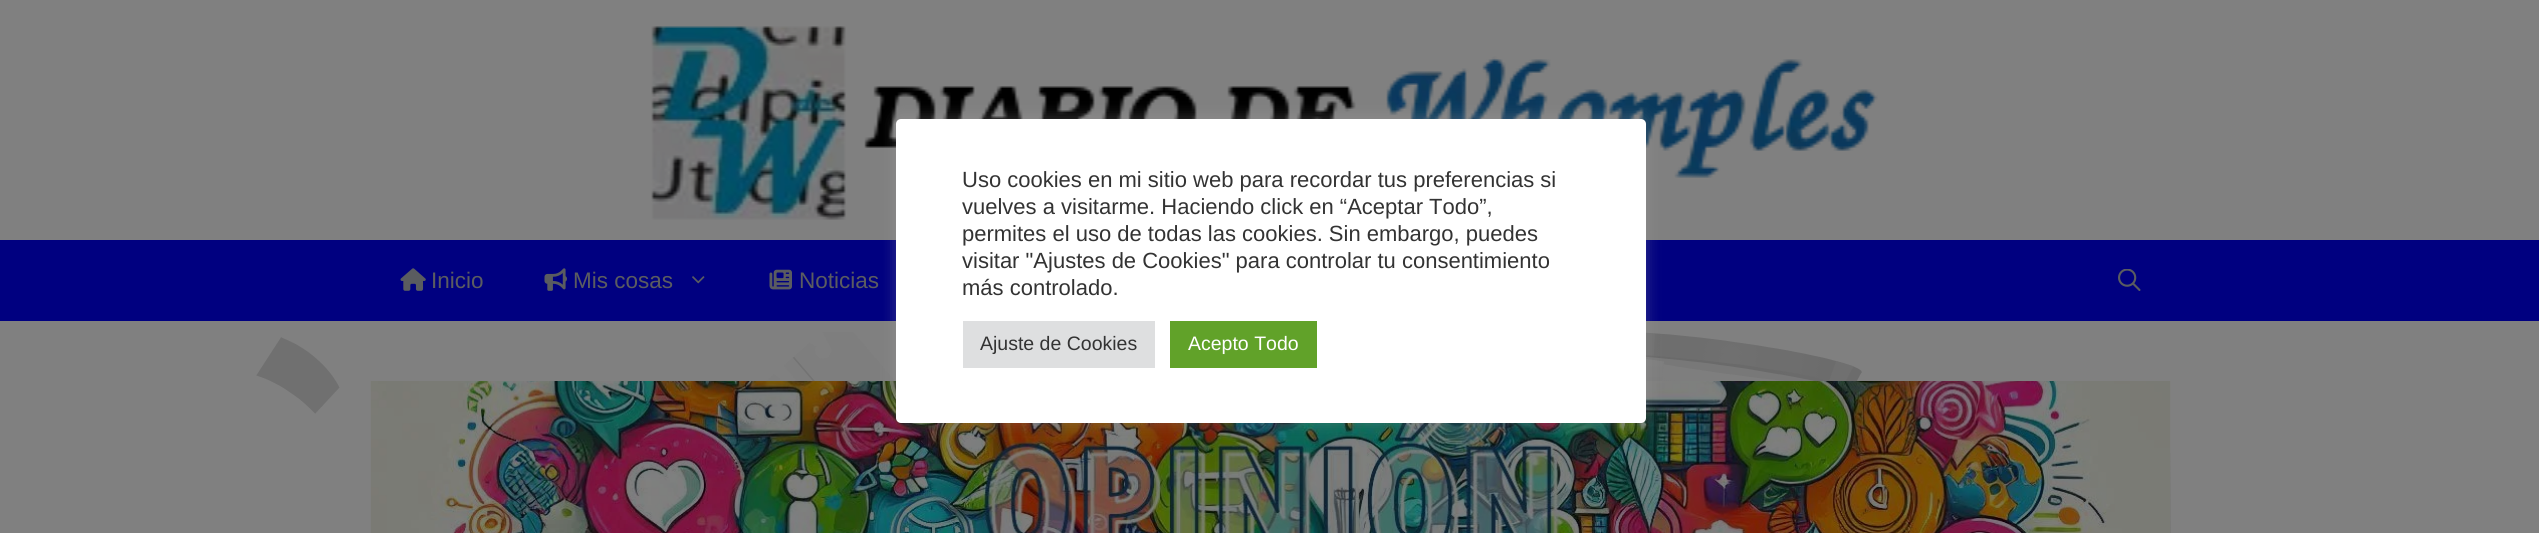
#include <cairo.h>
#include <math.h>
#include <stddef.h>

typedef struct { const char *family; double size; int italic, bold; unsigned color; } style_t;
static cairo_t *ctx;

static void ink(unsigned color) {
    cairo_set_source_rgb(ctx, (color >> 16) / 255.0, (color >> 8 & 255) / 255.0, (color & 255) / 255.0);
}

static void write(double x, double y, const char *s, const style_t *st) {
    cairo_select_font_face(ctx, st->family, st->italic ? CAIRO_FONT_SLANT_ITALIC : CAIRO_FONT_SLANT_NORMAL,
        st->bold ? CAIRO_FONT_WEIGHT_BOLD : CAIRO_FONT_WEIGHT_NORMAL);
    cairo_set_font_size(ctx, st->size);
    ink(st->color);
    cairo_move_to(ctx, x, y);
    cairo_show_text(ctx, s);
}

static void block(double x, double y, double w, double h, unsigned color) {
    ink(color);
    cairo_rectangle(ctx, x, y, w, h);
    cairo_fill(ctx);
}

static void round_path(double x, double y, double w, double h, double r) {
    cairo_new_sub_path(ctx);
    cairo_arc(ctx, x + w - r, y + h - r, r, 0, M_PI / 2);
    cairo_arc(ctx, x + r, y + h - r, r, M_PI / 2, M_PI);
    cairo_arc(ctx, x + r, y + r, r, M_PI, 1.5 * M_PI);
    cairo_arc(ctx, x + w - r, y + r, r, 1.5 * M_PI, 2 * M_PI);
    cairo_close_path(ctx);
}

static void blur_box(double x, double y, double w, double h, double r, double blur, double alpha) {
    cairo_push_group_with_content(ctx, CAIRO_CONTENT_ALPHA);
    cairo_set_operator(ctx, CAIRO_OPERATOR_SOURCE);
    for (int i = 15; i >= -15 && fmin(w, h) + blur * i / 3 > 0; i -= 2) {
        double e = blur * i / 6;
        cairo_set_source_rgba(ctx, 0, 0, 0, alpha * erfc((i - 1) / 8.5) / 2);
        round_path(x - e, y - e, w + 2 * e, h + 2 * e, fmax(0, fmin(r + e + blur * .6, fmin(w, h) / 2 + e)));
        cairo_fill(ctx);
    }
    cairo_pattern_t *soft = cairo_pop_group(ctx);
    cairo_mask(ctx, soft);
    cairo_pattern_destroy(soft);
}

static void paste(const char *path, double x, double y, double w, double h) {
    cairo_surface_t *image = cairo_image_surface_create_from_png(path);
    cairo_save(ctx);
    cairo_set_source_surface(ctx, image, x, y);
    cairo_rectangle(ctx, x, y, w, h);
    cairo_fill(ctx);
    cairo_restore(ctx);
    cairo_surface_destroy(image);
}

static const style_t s1 = {"Liberation Sans", 22.5, 0, 0, 0x5b5c60};
static const style_t s2 = {"Liberation Sans", 22, 0, 0, 0x333333};
static const style_t s3 = {"Liberation Sans", 19.5, 0, 0, 0x333333};
static const style_t s4 = {"Liberation Sans", 19.5, 0, 0, 0xffffff};

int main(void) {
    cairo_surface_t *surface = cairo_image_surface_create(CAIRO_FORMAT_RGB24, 2539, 533);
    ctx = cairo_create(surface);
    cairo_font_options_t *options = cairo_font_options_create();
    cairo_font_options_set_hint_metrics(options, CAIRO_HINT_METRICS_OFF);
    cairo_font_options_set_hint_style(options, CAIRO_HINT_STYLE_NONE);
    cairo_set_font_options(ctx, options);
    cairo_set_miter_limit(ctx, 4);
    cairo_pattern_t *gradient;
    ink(0x808080);
    cairo_paint(ctx);
    paste("pic1.png", 256, 332, 1606, 82);
    paste("pic2.png", 651, 26, 1227, 194);
    block(0, 240, 2539, 81, 0x000080);
    paste("pic3.png", 400, 268, 26, 23);
    write(431, 288, "Inicio", &s1);
    paste("pic4.png", 544, 268, 23, 23);
    write(573, 288, "Mis cosas", &s1);
    paste("pic5.png", 692, 276, 13, 8);
    paste("pic6.png", 769, 269, 23, 21);
    write(799, 288, "Noticias", &s1);
    paste("pic7.png", 2118, 269, 23, 22);
    gradient = cairo_pattern_create_linear(1271, 381, 1271, 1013);
    cairo_pattern_add_color_stop_rgba(gradient, 0, 0.502, 0.502, 0.502, 0.1);
    cairo_pattern_add_color_stop_rgba(gradient, 1, 0.063, 0.063, 0.071, 1);
    cairo_set_source(ctx, gradient);
    cairo_pattern_destroy(gradient);
    cairo_rectangle(ctx, 2170, 453, 1, 80);
    cairo_fill(ctx);
    paste("pic8.png", 370, 381, 1801, 152);
    ink(0xacabab);
    blur_box(896, 117, 750, 305, 5, 7.5, 0.3);
    ink(0xffffff);
    round_path(896, 119, 750, 304, 5);
    cairo_fill(ctx);
    write(962, 187, "Uso cookies en mi sitio web para recordar tus preferencias si", &s2);
    write(962, 214, "vuelves a visitarme. Haciendo click en “Aceptar Todo”,", &s2);
    write(962, 241, "permites el uso de todas las cookies. Sin embargo, puedes", &s2);
    write(962, 268, "visitar \"Ajustes de Cookies\" para controlar tu consentimiento", &s2);
    write(962, 295, "más controlado.", &s2);
    block(963, 321, 192, 47, 0xdedfe0);
    write(980, 350, "Ajuste de Cookies", &s3);
    block(1170, 321, 147, 47, 0x61a229);
    write(1188, 350, "Acepto Todo", &s4);
    cairo_surface_write_to_png(surface, "screenshot.png");
    cairo_font_options_destroy(options);
    cairo_destroy(ctx);
    cairo_surface_destroy(surface);
    return 0;
}
